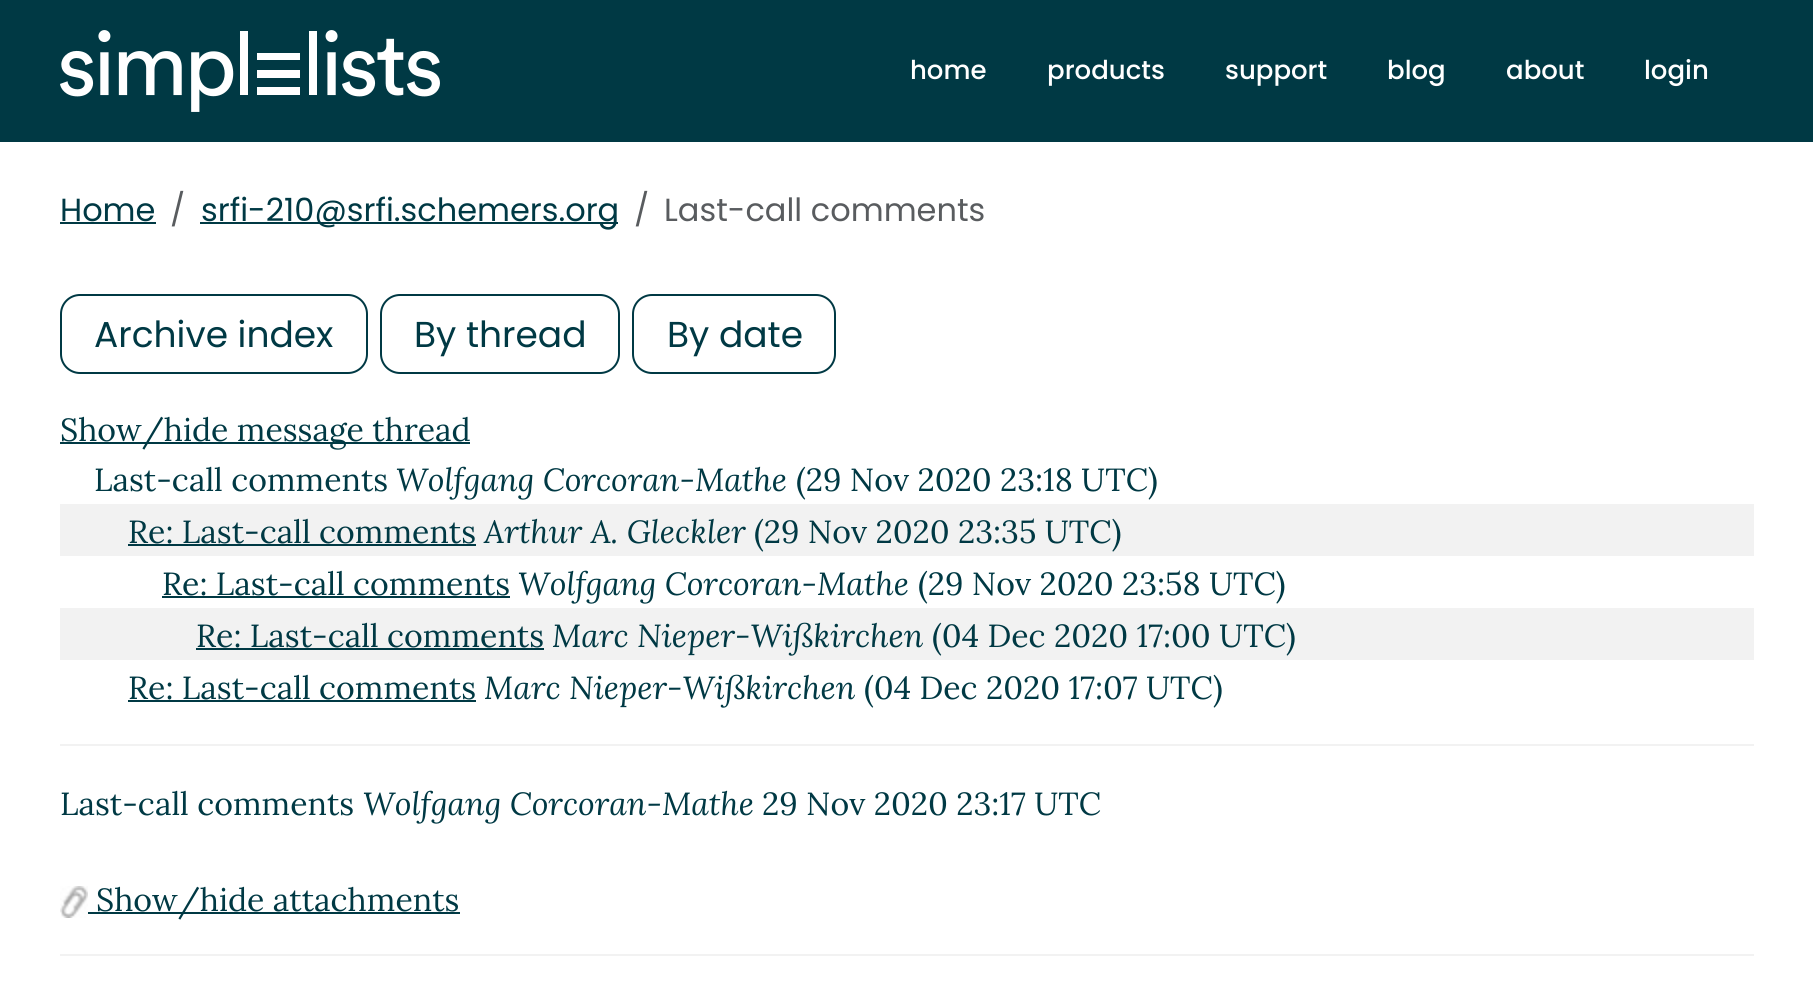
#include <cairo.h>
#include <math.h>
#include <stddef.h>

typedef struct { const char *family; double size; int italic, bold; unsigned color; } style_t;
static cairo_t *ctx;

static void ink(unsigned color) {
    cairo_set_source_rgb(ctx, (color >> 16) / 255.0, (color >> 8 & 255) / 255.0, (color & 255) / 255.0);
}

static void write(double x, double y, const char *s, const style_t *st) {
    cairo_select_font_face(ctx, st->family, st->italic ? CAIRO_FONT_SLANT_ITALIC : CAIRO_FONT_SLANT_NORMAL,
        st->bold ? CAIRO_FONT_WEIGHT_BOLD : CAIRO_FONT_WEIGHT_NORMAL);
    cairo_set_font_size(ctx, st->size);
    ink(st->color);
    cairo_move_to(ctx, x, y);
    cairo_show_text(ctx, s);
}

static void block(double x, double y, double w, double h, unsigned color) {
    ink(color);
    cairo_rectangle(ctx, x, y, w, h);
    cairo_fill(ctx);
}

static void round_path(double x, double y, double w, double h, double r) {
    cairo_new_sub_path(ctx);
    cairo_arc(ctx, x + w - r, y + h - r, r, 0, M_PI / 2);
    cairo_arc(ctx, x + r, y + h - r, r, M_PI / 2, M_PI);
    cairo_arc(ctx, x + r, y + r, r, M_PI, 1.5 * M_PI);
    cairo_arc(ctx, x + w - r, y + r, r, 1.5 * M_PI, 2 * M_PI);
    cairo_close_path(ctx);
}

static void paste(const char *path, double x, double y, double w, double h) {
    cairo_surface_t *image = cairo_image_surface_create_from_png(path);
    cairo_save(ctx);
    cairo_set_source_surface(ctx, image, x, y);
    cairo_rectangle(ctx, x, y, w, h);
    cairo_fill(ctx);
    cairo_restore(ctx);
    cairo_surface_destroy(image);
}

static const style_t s1 = {"Poppins Medium", 26, 0, 0, 0xffffff};
static const style_t s2 = {"Poppins", 32, 0, 0, 0x003944};
static const style_t s3 = {"Poppins", 32, 0, 0, 0x595c5f};
static const style_t s4 = {"Poppins", 36, 0, 0, 0x003944};
static const style_t s5 = {"Lora", 32, 0, 0, 0x003944};
static const style_t s6 = {"Lora", 32, 1, 0, 0x003944};

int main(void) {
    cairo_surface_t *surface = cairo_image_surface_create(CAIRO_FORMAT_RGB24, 1813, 984);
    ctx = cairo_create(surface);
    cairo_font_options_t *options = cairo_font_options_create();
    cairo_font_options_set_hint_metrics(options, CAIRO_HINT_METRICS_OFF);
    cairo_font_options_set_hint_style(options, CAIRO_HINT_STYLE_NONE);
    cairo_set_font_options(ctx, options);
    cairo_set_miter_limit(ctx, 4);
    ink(0xffffff);
    cairo_paint(ctx);
    block(0, 0, 1813, 142, 0x003944);
    paste("pic1.png", 60, 30, 380, 82);
    write(910, 79, "home", &s1);
    write(1047, 79, "products", &s1);
    write(1225, 79, "support", &s1);
    write(1387, 79, "blog", &s1);
    write(1506, 79, "about", &s1);
    write(1644, 79, "login", &s1);
    write(60, 221, "Home", &s2);
    block(60, 222, 96, 2, 0x003944);
    write(170, 221, "/", &s3);
    block(200, 222, 418, 2, 0x003944);
    write(201, 221, "srfi-210@srfi.schemers.org", &s2);
    write(634, 221, "/", &s3);
    write(664, 221, "Last-call comments", &s3);
    round_path(61, 295, 306, 78, 19);
    ink(0x003944);
    cairo_stroke(ctx);
    write(94, 347, "Archive index", &s4);
    round_path(381, 295, 238, 78, 19);
    cairo_stroke(ctx);
    write(414, 347, "By thread", &s4);
    round_path(633, 295, 202, 78, 19);
    cairo_stroke(ctx);
    write(667, 347, "By date", &s4);
    block(60, 442, 410, 2, 0x003944);
    write(60, 441, "Show/hide message thread", &s5);
    write(94, 491, "Last-call comments", &s5);
    write(396, 491, "Wolfgang Corcoran-Mathe", &s6);
    write(796, 491, "(29 Nov 2020 23:18 UTC)", &s5);
    block(60, 504, 1694, 52, 0xf2f2f2);
    write(128, 543, "Re: Last-call comments", &s5);
    block(128, 544, 348, 2, 0x003944);
    write(484, 543, "Arthur A. Gleckler", &s6);
    write(754, 543, "(29 Nov 2020 23:35 UTC)", &s5);
    write(162, 595, "Re: Last-call comments", &s5);
    block(162, 596, 348, 2, 0x003944);
    write(518, 595, "Wolfgang Corcoran-Mathe", &s6);
    write(918, 595, "(29 Nov 2020 23:58 UTC)", &s5);
    block(60, 608, 1694, 52, 0xf2f2f2);
    write(196, 647, "Re: Last-call comments", &s5);
    block(196, 648, 348, 2, 0x003944);
    write(552, 647, "Marc Nieper-Wißkirchen", &s6);
    write(932, 647, "(04 Dec 2020 17:00 UTC)", &s5);
    write(128, 699, "Re: Last-call comments", &s5);
    block(128, 700, 348, 2, 0x003944);
    write(484, 699, "Marc Nieper-Wißkirchen", &s6);
    write(864, 699, "(04 Dec 2020 17:07 UTC)", &s5);
    block(60, 744, 1694, 2, 0xf2f2f2);
    write(60, 815, "Last-call comments", &s5);
    write(363, 815, "Wolfgang Corcoran-Mathe", &s6);
    write(762, 815, "29 Nov 2020 23:17 UTC", &s5);
    paste("pic2.png", 60, 886, 28, 32);
    block(88, 912, 372, 2, 0x003944);
    write(96, 911, "Show/hide attachments", &s5);
    block(60, 954, 1694, 2, 0xf2f2f2);
    cairo_surface_write_to_png(surface, "screenshot.png");
    cairo_font_options_destroy(options);
    cairo_destroy(ctx);
    cairo_surface_destroy(surface);
    return 0;
}
